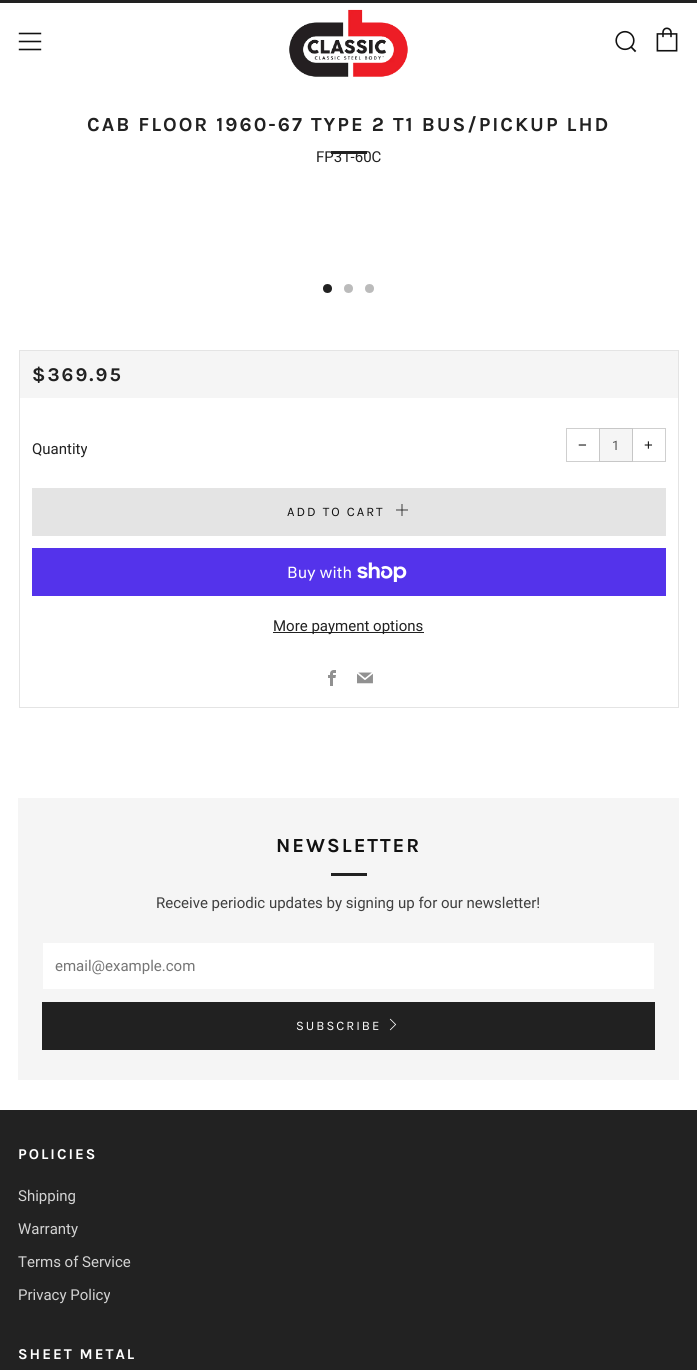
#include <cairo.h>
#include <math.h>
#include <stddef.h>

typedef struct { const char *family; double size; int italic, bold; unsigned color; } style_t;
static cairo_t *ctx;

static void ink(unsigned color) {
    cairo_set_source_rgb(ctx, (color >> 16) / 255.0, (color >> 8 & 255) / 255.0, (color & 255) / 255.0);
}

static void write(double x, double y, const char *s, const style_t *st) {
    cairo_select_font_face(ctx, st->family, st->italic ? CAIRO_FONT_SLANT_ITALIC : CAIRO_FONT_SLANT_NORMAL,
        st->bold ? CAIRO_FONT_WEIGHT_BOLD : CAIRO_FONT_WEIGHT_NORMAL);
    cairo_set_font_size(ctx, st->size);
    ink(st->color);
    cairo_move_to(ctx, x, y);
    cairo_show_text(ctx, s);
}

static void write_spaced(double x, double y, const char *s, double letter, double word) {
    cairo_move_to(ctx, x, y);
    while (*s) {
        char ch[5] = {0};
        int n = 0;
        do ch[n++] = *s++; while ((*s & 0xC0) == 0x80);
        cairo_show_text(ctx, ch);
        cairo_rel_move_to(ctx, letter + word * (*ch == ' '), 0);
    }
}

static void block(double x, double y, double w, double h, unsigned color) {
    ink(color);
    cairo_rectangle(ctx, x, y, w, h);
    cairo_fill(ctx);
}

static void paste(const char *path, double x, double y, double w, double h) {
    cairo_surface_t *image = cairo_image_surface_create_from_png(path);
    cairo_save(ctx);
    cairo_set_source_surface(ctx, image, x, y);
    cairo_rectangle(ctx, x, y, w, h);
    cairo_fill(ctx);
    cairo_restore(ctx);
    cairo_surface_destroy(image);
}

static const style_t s1 = {"Roboto", 15, 0, 0, 0x212121};
static const style_t s2 = {"Liberation Sans", 15, 0, 0, 0x111111};
static const style_t s3 = {"Roboto", 13, 0, 0, 0x555555};
static const style_t s4 = {"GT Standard", 16, 0, 0, 0xffffff};
static const style_t s5 = {"Roboto", 15, 0, 0, 0x3f3f3f};
static const style_t s6 = {"Roboto", 15, 0, 0, 0x757575};
static const style_t s7 = {"Roboto", 15, 0, 0, 0xd3d3d3};

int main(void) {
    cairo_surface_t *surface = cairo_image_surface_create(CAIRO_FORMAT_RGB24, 697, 1370);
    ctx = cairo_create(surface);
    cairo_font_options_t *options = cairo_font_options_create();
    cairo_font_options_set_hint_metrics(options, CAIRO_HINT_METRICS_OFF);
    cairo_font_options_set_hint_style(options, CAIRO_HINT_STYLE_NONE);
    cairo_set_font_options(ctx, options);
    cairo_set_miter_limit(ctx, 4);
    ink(0xffffff);
    cairo_paint(ctx);
    block(0, 0, 697, 3, 0x212121);
    paste("pic1.png", 18, 32, 24, 19);
    paste("pic2.png", 289, 9, 119, 68);
    paste("pic3.png", 615, 30, 22, 23);
    paste("pic4.png", 656, 27, 22, 25);
    cairo_select_font_face(ctx, "Karla", CAIRO_FONT_SLANT_NORMAL, CAIRO_FONT_WEIGHT_BOLD);
    cairo_set_font_size(ctx, 20);
    write_spaced(87, 131, "CAB FLOOR 1960-67 TYPE 2 T1 BUS/PICKUP LHD", 2, 0);
    block(331, 151, 36, 3, 0x212121);
    write(316, 162, "FP31-60C", &s1);
    cairo_new_path(ctx);
    cairo_arc(ctx, 327.5, 288.5, 4.5, 0, 2 * M_PI);
    cairo_fill(ctx);
    ink(0xbbbbbb);
    cairo_arc(ctx, 348.5, 288.5, 4.5, 0, 2 * M_PI);
    cairo_fill(ctx);
    cairo_arc(ctx, 369.5, 288.5, 4.5, 0, 2 * M_PI);
    cairo_fill(ctx);
    cairo_rectangle(ctx, 19.5, 350.5, 659, 357);
    ink(0xe4e4e4);
    cairo_set_line_width(ctx, 1);
    cairo_stroke(ctx);
    block(20, 351, 658, 47, 0xf5f5f5);
    cairo_select_font_face(ctx, "Karla", CAIRO_FONT_SLANT_NORMAL, CAIRO_FONT_WEIGHT_BOLD);
    cairo_set_font_size(ctx, 19.5);
    ink(0x212121);
    write_spaced(32, 381, "$369.95", 2, 0);
    write(32, 454, "Quantity", &s1);
    cairo_rectangle(ctx, 566.5, 428.5, 33, 33);
    ink(0xcfcfcf);
    cairo_stroke(ctx);
    write(578, 450, "−", &s2);
    ink(0xf5f5f5);
    cairo_rectangle(ctx, 599.5, 428.5, 33, 33);
    cairo_fill_preserve(ctx);
    ink(0xc7c7c7);
    cairo_stroke(ctx);
    write(612, 450, "1", &s3);
    cairo_set_source_rgba(ctx, 1, 1, 1, 0.8);
    cairo_rectangle(ctx, 632, 428, 1, 34);
    cairo_fill(ctx);
    cairo_rectangle(ctx, 632.5, 428.5, 33, 33);
    cairo_set_source_rgba(ctx, 0.067, 0.067, 0.067, 0.2);
    cairo_stroke(ctx);
    write(644, 450, "+", &s2);
    block(32, 488, 634, 48, 0xe4e4e4);
    cairo_select_font_face(ctx, "Karla", CAIRO_FONT_SLANT_NORMAL, CAIRO_FONT_WEIGHT_NORMAL);
    cairo_set_font_size(ctx, 13);
    ink(0x111111);
    write_spaced(287, 516, "ADD TO CART", 2, 0);
    paste("pic5.png", 396, 504, 12, 12);
    block(32, 548, 634, 48, 0x5433eb);
    write(287, 578, "Buy with", &s4);
    paste("pic6.png", 357, 562, 50, 20);
    block(273, 632, 151, 1, 0x212121);
    write(273, 631, "More payment options", &s1);
    paste("pic7.png", 328, 670, 8, 16);
    paste("pic8.png", 357, 672, 16, 12);
    block(18, 798, 661, 282, 0xf5f5f5);
    cairo_select_font_face(ctx, "Karla", CAIRO_FONT_SLANT_NORMAL, CAIRO_FONT_WEIGHT_BOLD);
    cairo_set_font_size(ctx, 20);
    ink(0x111111);
    write_spaced(276, 852, "NEWSLETTER", 2, 0);
    block(331, 873, 36, 3, 0x212121);
    write(156, 908, "Receive periodic updates by signing up for our newsletter!", &s5);
    block(43, 943, 611, 46, 0xffffff);
    write(55, 971, "email@example.com", &s6);
    block(42, 1002, 613, 48, 0x212121);
    cairo_select_font_face(ctx, "Karla", CAIRO_FONT_SLANT_NORMAL, CAIRO_FONT_WEIGHT_NORMAL);
    cairo_set_font_size(ctx, 13);
    ink(0xffffff);
    write_spaced(296, 1030, "SUBSCRIBE", 2, 0);
    paste("pic9.png", 389, 1018, 8, 13);
    block(0, 1110, 697, 260, 0x222222);
    cairo_select_font_face(ctx, "Karla", CAIRO_FONT_SLANT_NORMAL, CAIRO_FONT_WEIGHT_BOLD);
    cairo_set_font_size(ctx, 15);
    ink(0xffffff);
    write_spaced(18, 1159, "POLICIES", 2, 0);
    write(18, 1201, "Shipping", &s7);
    write(18, 1234, "Warranty", &s7);
    write(18, 1267, "Terms of Service", &s7);
    write(18, 1300, "Privacy Policy", &s7);
    cairo_select_font_face(ctx, "Karla", CAIRO_FONT_SLANT_NORMAL, CAIRO_FONT_WEIGHT_BOLD);
    ink(0xffffff);
    write_spaced(18, 1359, "SHEET METAL", 2, 0);
    cairo_surface_write_to_png(surface, "screenshot.png");
    cairo_font_options_destroy(options);
    cairo_destroy(ctx);
    cairo_surface_destroy(surface);
    return 0;
}
